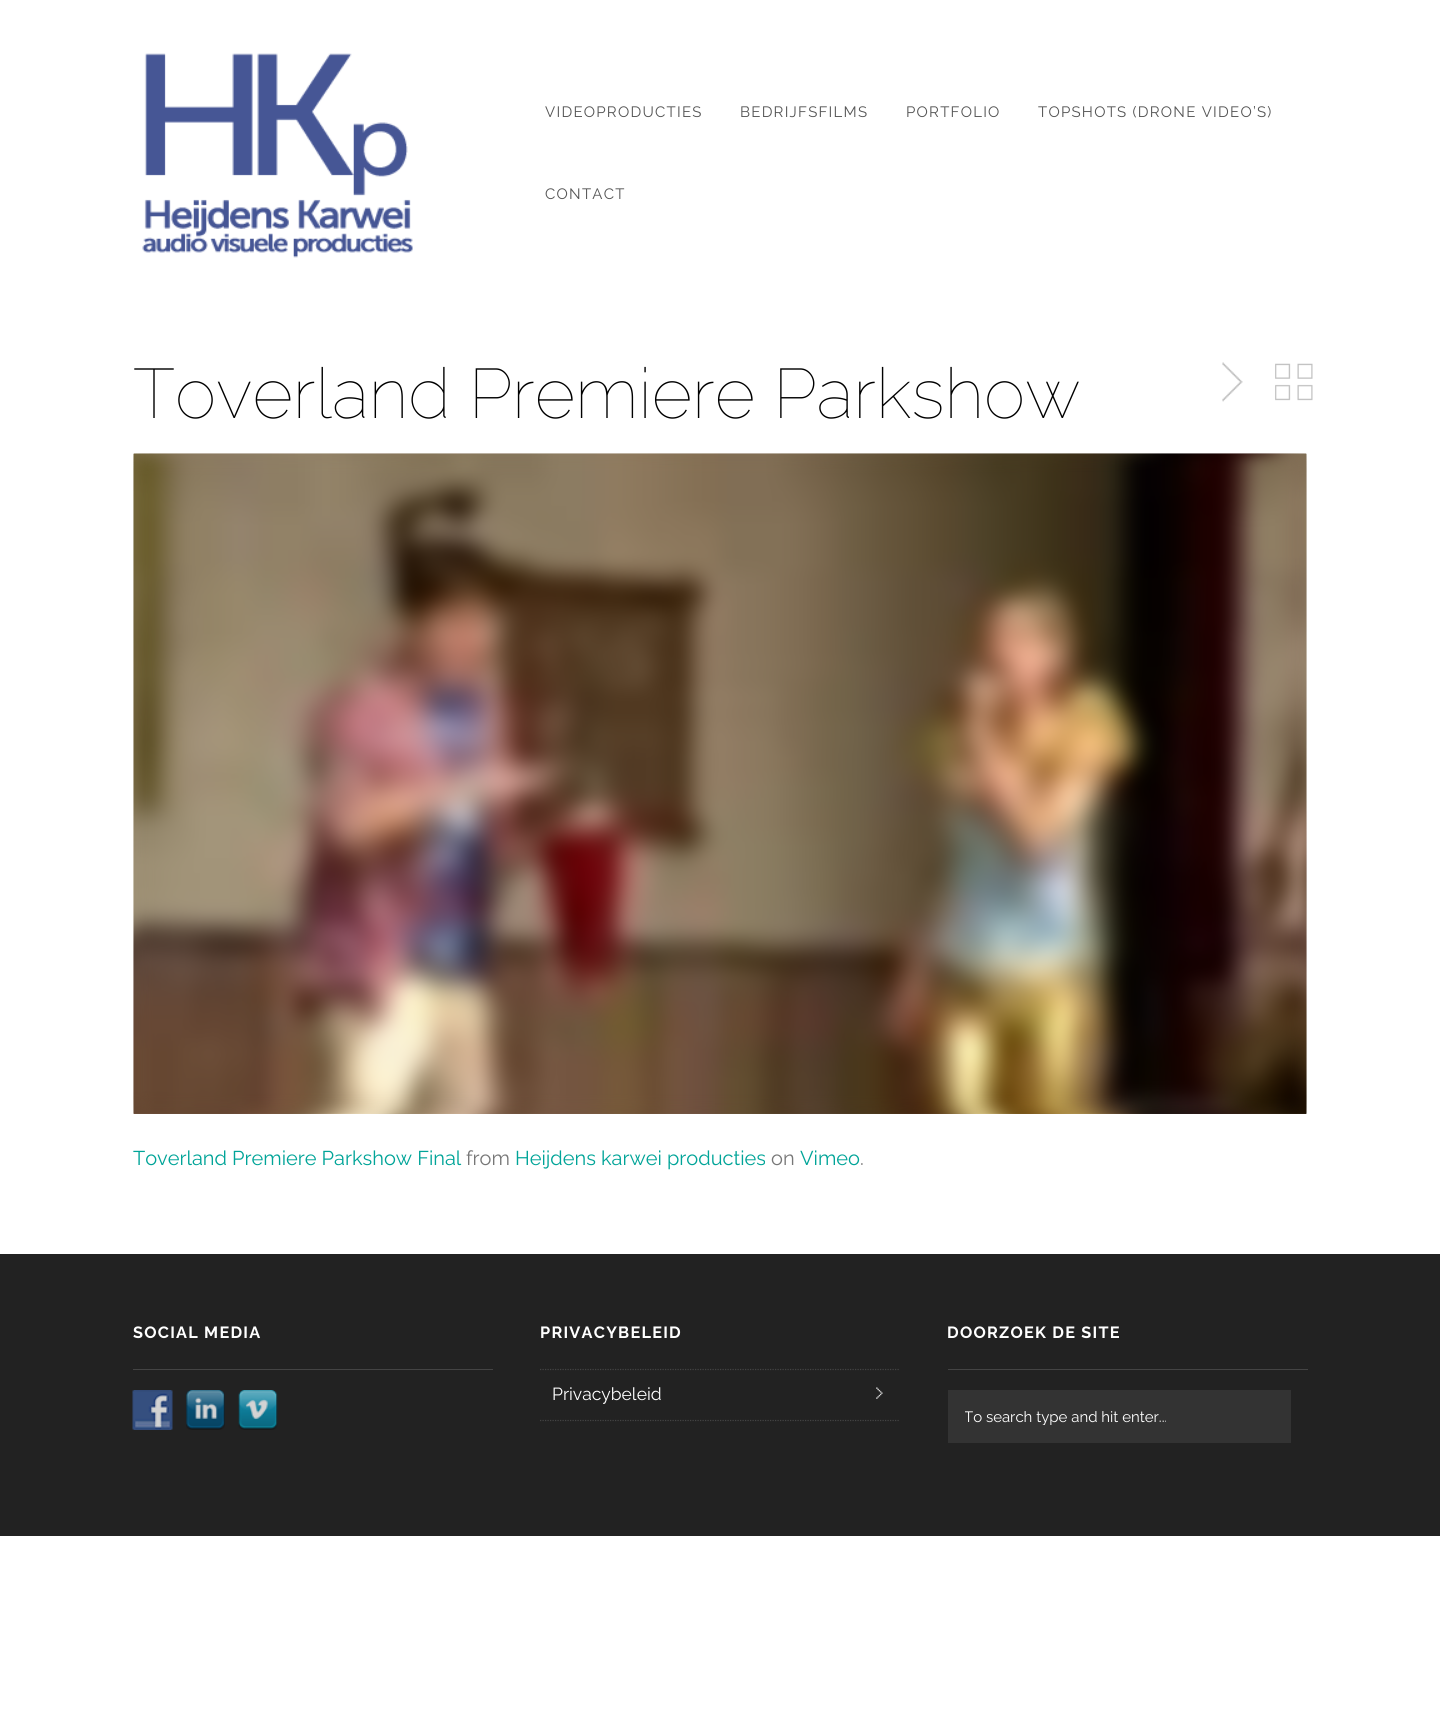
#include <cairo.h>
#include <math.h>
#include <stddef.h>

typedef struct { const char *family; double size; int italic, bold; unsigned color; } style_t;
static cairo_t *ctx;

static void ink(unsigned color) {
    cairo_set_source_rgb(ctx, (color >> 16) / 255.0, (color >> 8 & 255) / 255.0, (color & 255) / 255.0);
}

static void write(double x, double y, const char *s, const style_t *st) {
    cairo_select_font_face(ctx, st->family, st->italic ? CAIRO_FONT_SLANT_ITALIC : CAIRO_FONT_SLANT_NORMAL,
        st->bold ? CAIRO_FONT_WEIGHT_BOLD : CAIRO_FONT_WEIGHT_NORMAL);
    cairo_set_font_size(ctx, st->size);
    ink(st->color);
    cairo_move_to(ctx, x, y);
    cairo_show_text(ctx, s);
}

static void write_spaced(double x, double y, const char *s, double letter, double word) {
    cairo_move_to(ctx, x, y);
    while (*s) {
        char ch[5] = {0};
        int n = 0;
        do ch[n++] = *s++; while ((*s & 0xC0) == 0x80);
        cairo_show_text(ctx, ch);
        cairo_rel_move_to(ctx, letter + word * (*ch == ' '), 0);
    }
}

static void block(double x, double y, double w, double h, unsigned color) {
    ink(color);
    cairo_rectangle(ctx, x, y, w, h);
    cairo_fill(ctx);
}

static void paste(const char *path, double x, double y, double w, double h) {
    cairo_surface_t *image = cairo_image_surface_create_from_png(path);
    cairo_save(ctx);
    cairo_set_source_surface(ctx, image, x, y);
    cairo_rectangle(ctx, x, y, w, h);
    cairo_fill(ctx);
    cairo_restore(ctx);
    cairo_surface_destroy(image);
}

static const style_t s1 = {"Raleway Thin", 70, 0, 0, 0x000000};
static const style_t s2 = {"Raleway", 20, 0, 0, 0x00a498};
static const style_t s3 = {"Raleway", 20, 0, 0, 0x777777};
static const style_t s4 = {"Raleway", 17.5, 0, 0, 0xffffff};
static const style_t s5 = {"Raleway", 15, 0, 0, 0xffffff};

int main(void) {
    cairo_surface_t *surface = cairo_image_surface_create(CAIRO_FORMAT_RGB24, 1440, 1723);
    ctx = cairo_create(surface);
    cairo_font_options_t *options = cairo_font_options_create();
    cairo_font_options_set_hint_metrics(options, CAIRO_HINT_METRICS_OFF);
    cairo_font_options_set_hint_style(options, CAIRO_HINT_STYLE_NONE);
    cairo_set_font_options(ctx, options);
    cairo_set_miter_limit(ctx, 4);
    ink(0xffffff);
    cairo_paint(ctx);
    paste("pic1.png", 142, 53, 271, 205);
    cairo_select_font_face(ctx, "Raleway", CAIRO_FONT_SLANT_NORMAL, CAIRO_FONT_WEIGHT_NORMAL);
    cairo_set_font_size(ctx, 15);
    ink(0x555555);
    write_spaced(545, 117, "VIDEOPRODUCTIES", 1.25, 0);
    write_spaced(740, 117, "BEDRIJFSFILMS", 1.25, 0);
    write_spaced(906, 117, "PORTFOLIO", 1.25, 0);
    write_spaced(1038, 117, "TOPSHOTS (DRONE VIDEO’S)", 1.25, 0);
    write_spaced(545, 199, "CONTACT", 1.25, 0);
    write(133, 418, "Toverland Premiere Parkshow", &s1);
    paste("pic2.png", 1222, 362, 21, 40);
    paste("pic3.png", 1275, 363, 38, 38);
    paste("pic4.png", 133, 453, 1174, 661);
    paste("pic5.png", 133, 453, 1174, 661);
    write(133, 1165, "Toverland Premiere Parkshow Final", &s2);
    write(466, 1165, "from", &s3);
    write(515, 1165, "Heijdens karwei producties", &s2);
    write(771, 1165, "on", &s3);
    write(800, 1165, "Vimeo", &s2);
    write(860, 1165, ".", &s3);
    block(0, 1254, 1440, 282, 0x222222);
    block(133, 1369, 360, 1, 0x444444);
    cairo_select_font_face(ctx, "Raleway", CAIRO_FONT_SLANT_NORMAL, CAIRO_FONT_WEIGHT_BOLD);
    cairo_set_font_size(ctx, 16.25);
    ink(0xffffff);
    write_spaced(133, 1338, "SOCIAL MEDIA", 1.25, 0);
    paste("pic6.png", 132, 1390, 41, 40);
    paste("pic7.png", 186, 1390, 39, 40);
    paste("pic8.png", 238, 1390, 40, 40);
    cairo_new_path(ctx);
    cairo_move_to(ctx, 540, 1369.5);
    cairo_line_to(ctx, 900, 1369.5);
    ink(0x444444);
    cairo_set_line_width(ctx, 1.2);
    cairo_set_dash(ctx, (double[]){1.25, 1.25}, 2, 0);
    cairo_stroke(ctx);
    ink(0xffffff);
    write_spaced(540, 1338, "PRIVACYBELEID", 1.25, 0);
    paste("pic9.png", 876, 1387, 7, 12);
    cairo_new_path(ctx);
    cairo_move_to(ctx, 540, 1420.5);
    cairo_line_to(ctx, 900, 1420.5);
    ink(0x444444);
    cairo_stroke(ctx);
    write(552, 1400, "Privacybeleid", &s4);
    block(948, 1369, 360, 1, 0x444444);
    cairo_select_font_face(ctx, "Raleway", CAIRO_FONT_SLANT_NORMAL, CAIRO_FONT_WEIGHT_BOLD);
    cairo_set_font_size(ctx, 16.25);
    ink(0xffffff);
    write_spaced(947, 1338, "DOORZOEK DE SITE", 1.25, 0);
    block(948, 1390, 343, 53, 0x333333);
    cairo_save(ctx);
    cairo_rectangle(ctx, 965, 1408, 309, 17);
    cairo_clip(ctx);
    write(964, 1422, "To search type and hit enter...", &s5);
    cairo_restore(ctx);
    cairo_surface_write_to_png(surface, "screenshot.png");
    cairo_font_options_destroy(options);
    cairo_destroy(ctx);
    cairo_surface_destroy(surface);
    return 0;
}
